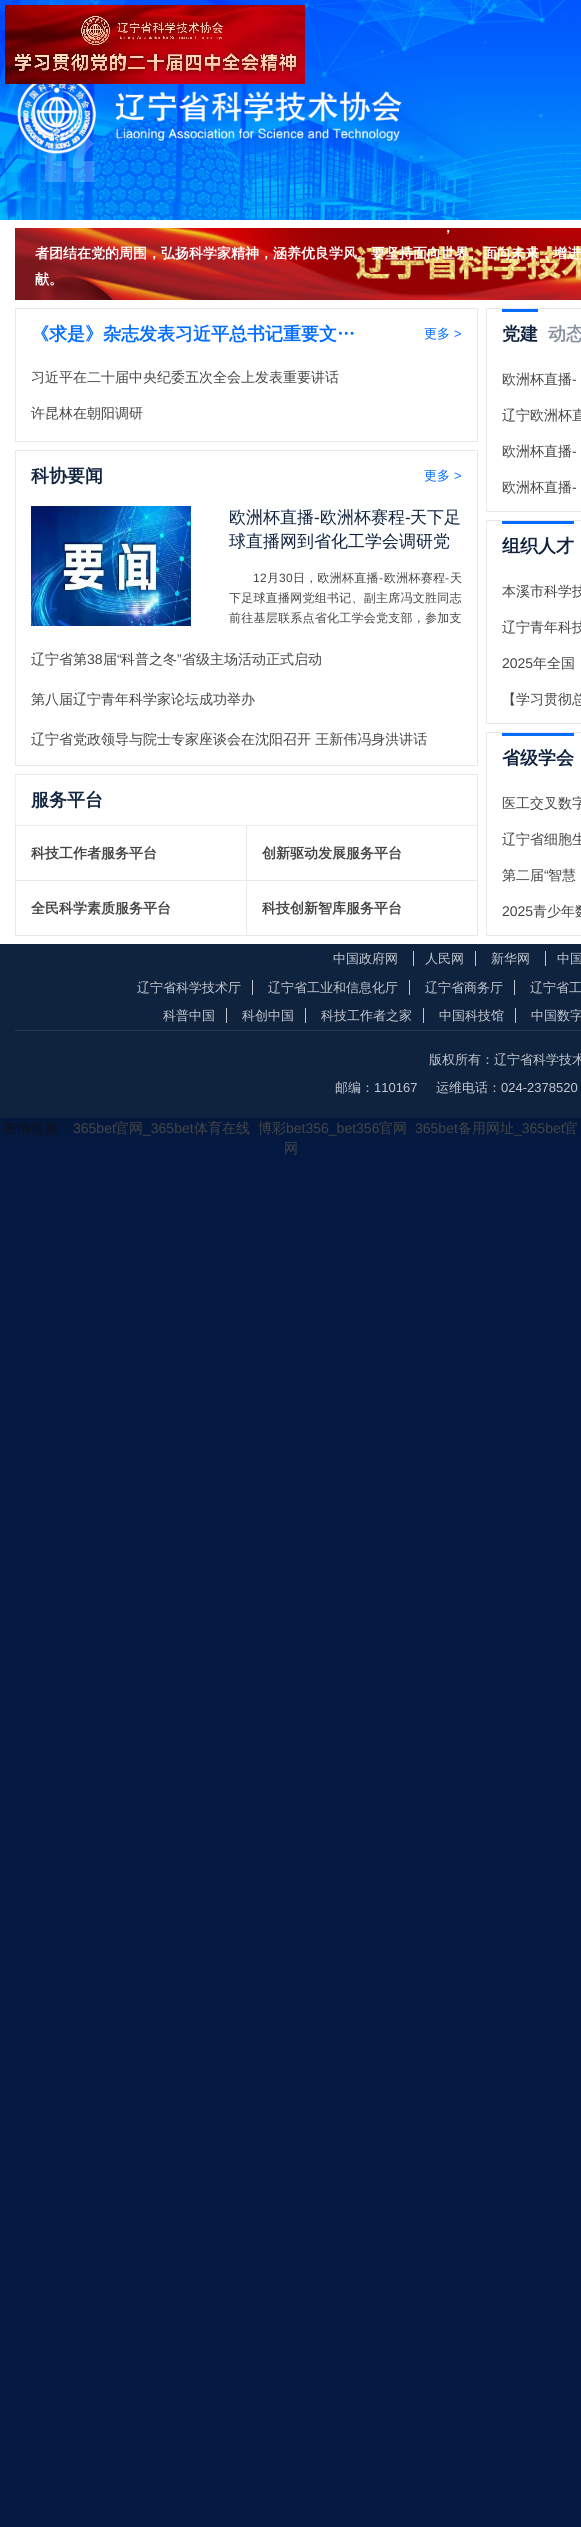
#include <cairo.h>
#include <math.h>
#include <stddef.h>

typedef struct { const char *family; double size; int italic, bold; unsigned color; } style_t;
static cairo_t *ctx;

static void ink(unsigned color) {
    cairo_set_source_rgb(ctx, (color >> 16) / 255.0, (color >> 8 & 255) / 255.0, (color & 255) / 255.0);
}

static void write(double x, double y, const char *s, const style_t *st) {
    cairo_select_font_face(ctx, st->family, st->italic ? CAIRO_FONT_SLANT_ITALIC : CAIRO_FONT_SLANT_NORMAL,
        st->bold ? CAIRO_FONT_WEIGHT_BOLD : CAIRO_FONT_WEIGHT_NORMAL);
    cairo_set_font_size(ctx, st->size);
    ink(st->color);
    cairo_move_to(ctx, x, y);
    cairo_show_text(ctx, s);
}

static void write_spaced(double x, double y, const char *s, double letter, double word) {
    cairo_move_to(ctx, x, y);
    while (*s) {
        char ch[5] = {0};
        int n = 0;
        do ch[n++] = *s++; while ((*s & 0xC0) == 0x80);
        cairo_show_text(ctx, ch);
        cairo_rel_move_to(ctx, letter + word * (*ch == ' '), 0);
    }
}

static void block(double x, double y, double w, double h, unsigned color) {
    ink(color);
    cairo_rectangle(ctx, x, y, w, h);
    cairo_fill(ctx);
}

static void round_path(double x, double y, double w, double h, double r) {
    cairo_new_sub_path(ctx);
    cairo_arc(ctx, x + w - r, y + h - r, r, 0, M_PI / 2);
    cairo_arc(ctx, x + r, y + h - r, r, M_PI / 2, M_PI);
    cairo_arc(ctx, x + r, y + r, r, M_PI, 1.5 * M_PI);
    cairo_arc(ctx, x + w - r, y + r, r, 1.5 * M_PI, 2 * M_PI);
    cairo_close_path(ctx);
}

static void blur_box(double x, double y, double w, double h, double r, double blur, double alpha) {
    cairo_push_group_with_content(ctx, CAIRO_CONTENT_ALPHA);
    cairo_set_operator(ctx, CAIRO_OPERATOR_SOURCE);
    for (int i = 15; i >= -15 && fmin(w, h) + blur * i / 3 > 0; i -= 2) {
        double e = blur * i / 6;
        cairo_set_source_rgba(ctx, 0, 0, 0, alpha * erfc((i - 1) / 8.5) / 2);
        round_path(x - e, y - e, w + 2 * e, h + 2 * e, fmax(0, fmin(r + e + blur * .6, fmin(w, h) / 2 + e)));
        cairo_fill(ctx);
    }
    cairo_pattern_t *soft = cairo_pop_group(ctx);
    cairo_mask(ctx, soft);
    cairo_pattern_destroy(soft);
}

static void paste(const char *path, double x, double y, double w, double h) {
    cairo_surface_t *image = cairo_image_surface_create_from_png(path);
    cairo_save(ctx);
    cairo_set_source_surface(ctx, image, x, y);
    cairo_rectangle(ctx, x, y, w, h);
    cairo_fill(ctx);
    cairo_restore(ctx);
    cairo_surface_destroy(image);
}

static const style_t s1 = {"WenQuanYi Zen Hei", 14, 0, 1, 0xffffff};
static const style_t s2 = {"WenQuanYi Zen Hei", 18, 0, 1, 0x026dff};
static const style_t s3 = {"WenQuanYi Zen Hei Medium", 13, 0, 0, 0x026dff};
static const style_t s4 = {"Liberation Sans", 13, 0, 0, 0x026dff};
static const style_t s5 = {"WenQuanYi Zen Hei Medium", 14, 0, 0, 0x444444};
static const style_t s6 = {"WenQuanYi Zen Hei", 18, 0, 1, 0x0f233f};
static const style_t s7 = {"WenQuanYi Zen Hei Medium", 17, 0, 0, 0x0f233f};
static const style_t s8 = {"Liberation Sans", 17, 0, 0, 0x0f233f};
static const style_t s9 = {"Liberation Sans", 14, 0, 0, 0x444444};
static const style_t s10 = {"WenQuanYi Zen Hei", 14, 0, 1, 0x444444};
static const style_t s11 = {"WenQuanYi Zen Hei", 18, 0, 1, 0x87919f};
static const style_t s12 = {"WenQuanYi Zen Hei Medium", 13, 0, 0, 0xc3c8cf};
static const style_t s13 = {"Liberation Sans", 13, 0, 0, 0xc3c8cf};
static const style_t s14 = {"WenQuanYi Zen Hei Medium", 14, 0, 0, 0x111111};

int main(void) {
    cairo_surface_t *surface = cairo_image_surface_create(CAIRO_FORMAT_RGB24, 581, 2527);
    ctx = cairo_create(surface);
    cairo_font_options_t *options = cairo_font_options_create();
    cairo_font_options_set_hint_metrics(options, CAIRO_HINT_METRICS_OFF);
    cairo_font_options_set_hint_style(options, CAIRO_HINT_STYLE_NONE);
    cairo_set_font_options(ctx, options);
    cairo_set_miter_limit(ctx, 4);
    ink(0x041941);
    cairo_paint(ctx);
    ink(0x021432);
    blur_box(0, 8, 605, 1118, 0, 8, 0.5);
    paste("pic2.png", 0, 0, 581, 220);
    paste("pic3.png", 0, 0, 565, 119);
    paste("pic1.png", 5, 5, 300, 79);
    block(0, 220, 581, 724, 0xffffff);
    paste("pic4.png", 17, 84, 385, 70);
    paste("pic5.png", 45, 138, 50, 44);
    paste("pic6.png", 15, 228, 566, 72);
    write(441, 232, "，", &s1);
    write(35, 258, "者团结在党的周围，弘扬科学家精神，涵养优良学风。要坚持面向世界、面向未来，增进", &s1);
    write(35, 284, "献。", &s1);
    cairo_rectangle(ctx, 15.5, 308.5, 462, 133);
    ink(0xe9e9e9);
    cairo_set_line_width(ctx, 1);
    cairo_stroke(ctx);
    write(31, 340, "《求是》杂志发表习近平总书记重要文…", &s2);
    write(424, 338, "更多", &s3);
    write(454, 338, ">", &s4);
    write(31, 382, "习近平在二十届中央纪委五次全会上发表重要讲话", &s5);
    write(31, 418, "许昆林在朝阳调研", &s5);
    cairo_rectangle(ctx, 15.5, 450.5, 462, 315);
    ink(0xe9e9e9);
    cairo_stroke(ctx);
    write(31, 482, "科协要闻", &s6);
    write(424, 480, "更多", &s3);
    write(454, 480, ">", &s4);
    paste("pic7.png", 31, 506, 160, 120);
    write(229, 523, "欧洲杯直播", &s7);
    write(314, 523, "-", &s8);
    write(320, 523, "欧洲杯赛程", &s7);
    write(405, 523, "-", &s8);
    write(410, 523, "天下足", &s7);
    write(229, 547, "球直播网到省化工学会调研党", &s7);
    cairo_select_font_face(ctx, "Liberation Sans", CAIRO_FONT_SLANT_NORMAL, CAIRO_FONT_WEIGHT_NORMAL);
    cairo_set_font_size(ctx, 12);
    ink(0x444444);
    write_spaced(253, 582, "12", 0.25, 0);
    cairo_select_font_face(ctx, "WenQuanYi Zen Hei Medium", CAIRO_FONT_SLANT_NORMAL, CAIRO_FONT_WEIGHT_NORMAL);
    write_spaced(267, 582, "月", 0.25, 0);
    cairo_select_font_face(ctx, "Liberation Sans", CAIRO_FONT_SLANT_NORMAL, CAIRO_FONT_WEIGHT_NORMAL);
    write_spaced(279, 582, "30", 0.25, 0);
    cairo_select_font_face(ctx, "WenQuanYi Zen Hei Medium", CAIRO_FONT_SLANT_NORMAL, CAIRO_FONT_WEIGHT_NORMAL);
    write_spaced(293, 582, "日，欧洲杯直播", 0.25, 0);
    cairo_select_font_face(ctx, "Liberation Sans", CAIRO_FONT_SLANT_NORMAL, CAIRO_FONT_WEIGHT_NORMAL);
    write_spaced(379, 582, "-", 0.25, 0);
    cairo_select_font_face(ctx, "WenQuanYi Zen Hei Medium", CAIRO_FONT_SLANT_NORMAL, CAIRO_FONT_WEIGHT_NORMAL);
    write_spaced(384, 582, "欧洲杯赛程", 0.25, 0);
    cairo_select_font_face(ctx, "Liberation Sans", CAIRO_FONT_SLANT_NORMAL, CAIRO_FONT_WEIGHT_NORMAL);
    write_spaced(445, 582, "-", 0.25, 0);
    cairo_select_font_face(ctx, "WenQuanYi Zen Hei Medium", CAIRO_FONT_SLANT_NORMAL, CAIRO_FONT_WEIGHT_NORMAL);
    write_spaced(450, 582, "天", 0.25, 0);
    write_spaced(229, 602, "下足球直播网党组书记、副主席冯文胜同志", 0.25, 0);
    write_spaced(229, 622, "前往基层联系点省化工学会党支部，参加支", 0.25, 0);
    write(31, 664, "辽宁省第", &s5);
    write(87, 664, "38", &s9);
    write(103, 664, "届", &s5);
    write(117, 664, "“", &s9);
    write(121, 664, "科普之冬", &s5);
    write(177, 664, "”", &s9);
    write(182, 664, "省级主场活动正式启动", &s5);
    write(31, 704, "第八届辽宁青年科学家论坛成功举办", &s5);
    write(31, 744, "辽宁省党政领导与院士专家座谈会在沈阳召开 王新伟冯身洪讲话", &s5);
    block(15, 774, 463, 1, 0xe9e9e9);
    block(477, 774, 1, 162, 0xe9e9e9);
    block(15, 825, 462, 1, 0xeeeeee);
    block(15, 775, 1, 51, 0xeeeeee);
    write(31, 806, "服务平台", &s6);
    block(15, 880, 462, 1, 0xe9e9e9);
    block(15, 826, 1, 55, 0xe9e9e9);
    write(31, 858, "科技工作者服务平台", &s10);
    block(246, 826, 1, 55, 0xe9e9e9);
    write(262, 858, "创新驱动发展服务平台", &s10);
    block(15, 935, 462, 1, 0xe9e9e9);
    block(15, 881, 1, 55, 0xe9e9e9);
    write(31, 913, "全民科学素质服务平台", &s10);
    block(246, 881, 1, 55, 0xe9e9e9);
    write(262, 913, "科技创新智库服务平台", &s10);
    cairo_rectangle(ctx, 486.5, 308.5, 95, 203);
    ink(0xe9e9e9);
    cairo_stroke(ctx);
    block(502, 309, 36, 3, 0x026dff);
    write(502, 340, "党建", &s6);
    write(548, 340, "动态", &s11);
    write(502, 384, "欧洲杯直播", &s5);
    write(572, 384, "-", &s9);
    write(502, 420, "辽宁欧洲杯直", &s5);
    write(502, 456, "欧洲杯直播", &s5);
    write(572, 456, "-", &s9);
    write(502, 492, "欧洲杯直播", &s5);
    write(572, 492, "-", &s9);
    cairo_rectangle(ctx, 486.5, 520.5, 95, 203);
    ink(0xe9e9e9);
    cairo_stroke(ctx);
    block(502, 521, 72, 3, 0x026dff);
    write(502, 552, "组织人才", &s6);
    write(502, 596, "本溪市科学技", &s5);
    write(502, 632, "辽宁青年科技", &s5);
    write(502, 668, "2025", &s9);
    write(533, 668, "年全国", &s5);
    write(502, 704, "【学习贯彻总", &s5);
    cairo_rectangle(ctx, 486.5, 732.5, 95, 203);
    ink(0xe9e9e9);
    cairo_stroke(ctx);
    block(502, 733, 72, 3, 0x026dff);
    write(502, 764, "省级学会", &s6);
    write(502, 808, "医工交叉数字", &s5);
    write(502, 844, "辽宁省细胞生", &s5);
    write(502, 880, "第二届", &s5);
    write(544, 880, "“", &s9);
    write(548, 880, "智慧", &s5);
    write(502, 916, "2025", &s9);
    write(533, 916, "青少年数", &s5);
    block(0, 944, 581, 174, 0x0f233f);
    write(333, 963, "中国政府网", &s12);
    block(413, 951, 1, 15, 0xc3c8cf);
    write(425, 963, "人民网", &s12);
    block(475, 951, 1, 15, 0xc3c8cf);
    write(491, 963, "新华网", &s12);
    block(545, 951, 1, 15, 0xc3c8cf);
    write(557, 963, "中国", &s12);
    write(137, 992, "辽宁省科学技术厅", &s12);
    block(252, 980, 1, 15, 0xc3c8cf);
    write(268, 992, "辽宁省工业和信息化厅", &s12);
    block(409, 980, 1, 15, 0xc3c8cf);
    write(425, 992, "辽宁省商务厅", &s12);
    block(514, 980, 1, 15, 0xc3c8cf);
    write(530, 992, "辽宁省工", &s12);
    block(15, 1030, 566, 1, 0x273952);
    write(163, 1020, "科普中国", &s12);
    block(226, 1008, 1, 15, 0xc3c8cf);
    write(242, 1020, "科创中国", &s12);
    block(305, 1008, 1, 15, 0xc3c8cf);
    write(321, 1020, "科技工作者之家", &s12);
    block(423, 1008, 1, 15, 0xc3c8cf);
    write(439, 1020, "中国科技馆", &s12);
    block(515, 1008, 1, 15, 0xc3c8cf);
    write(531, 1020, "中国数字", &s12);
    write(429, 1064, "版权所有：辽宁省科学技术", &s12);
    write(335, 1092, "邮编：", &s12);
    write(374, 1092, "110167", &s13);
    write(436, 1092, "运维电话：", &s12);
    write(501, 1092, "024-2378520", &s13);
    write(3, 1133, "友情链接：", &s14);
    write(73, 1133, "365bet", &s9);
    write(115, 1133, "官网", &s5);
    write(143, 1133, "_365bet", &s9);
    write(194, 1133, "体育在线", &s5);
    write(258, 1133, "博彩", &s5);
    write(286, 1133, "bet356_bet356", &s9);
    write(379, 1133, "官网", &s5);
    write(415, 1133, "365bet", &s9);
    write(458, 1133, "备用网址", &s5);
    write(514, 1133, "_365bet", &s9);
    write(564, 1133, "官", &s5);
    write(284, 1153, "网", &s5);
    cairo_surface_write_to_png(surface, "screenshot.png");
    cairo_font_options_destroy(options);
    cairo_destroy(ctx);
    cairo_surface_destroy(surface);
    return 0;
}
